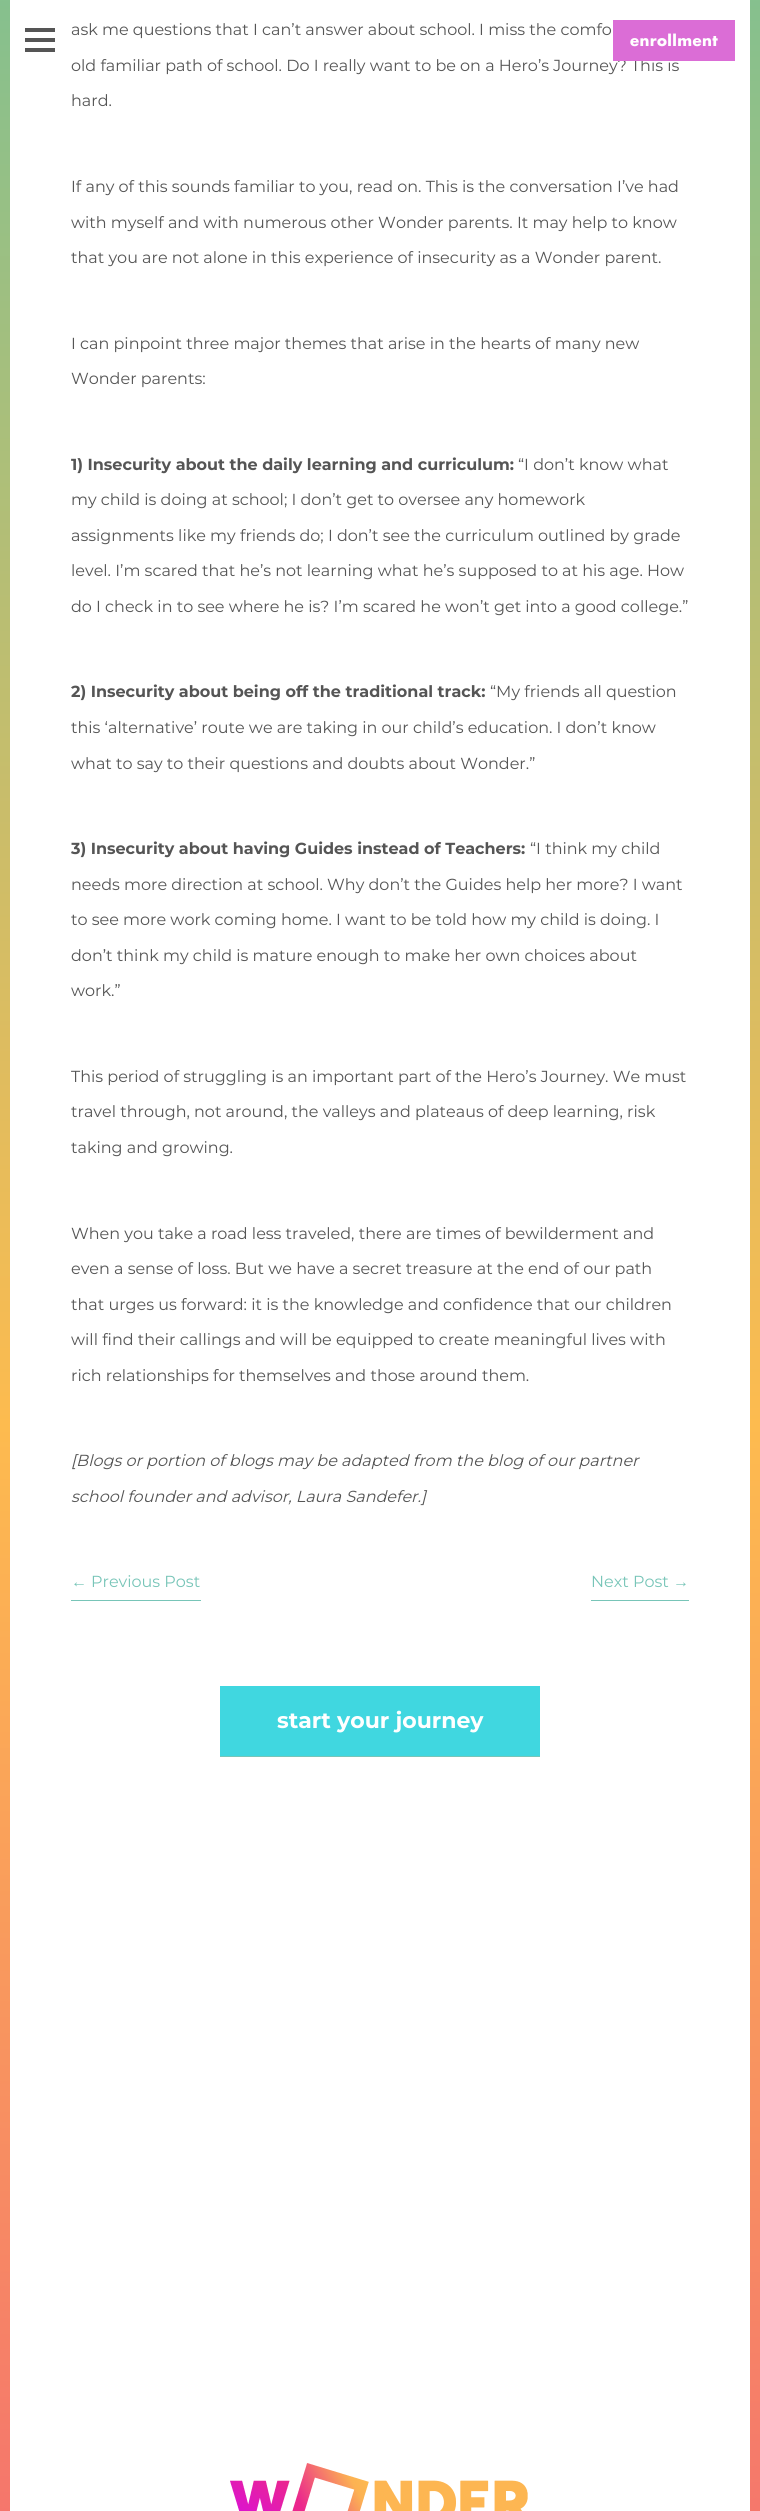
#include <cairo.h>
#include <math.h>
#include <stddef.h>

typedef struct { const char *family; double size; int italic, bold; unsigned color; } style_t;
static cairo_t *ctx;

static void ink(unsigned color) {
    cairo_set_source_rgb(ctx, (color >> 16) / 255.0, (color >> 8 & 255) / 255.0, (color & 255) / 255.0);
}

static void write(double x, double y, const char *s, const style_t *st) {
    cairo_select_font_face(ctx, st->family, st->italic ? CAIRO_FONT_SLANT_ITALIC : CAIRO_FONT_SLANT_NORMAL,
        st->bold ? CAIRO_FONT_WEIGHT_BOLD : CAIRO_FONT_WEIGHT_NORMAL);
    cairo_set_font_size(ctx, st->size);
    ink(st->color);
    cairo_move_to(ctx, x, y);
    cairo_show_text(ctx, s);
}

static void write_spaced(double x, double y, const char *s, double letter, double word) {
    cairo_move_to(ctx, x, y);
    while (*s) {
        char ch[5] = {0};
        int n = 0;
        do ch[n++] = *s++; while ((*s & 0xC0) == 0x80);
        cairo_show_text(ctx, ch);
        cairo_rel_move_to(ctx, letter + word * (*ch == ' '), 0);
    }
}

static void block(double x, double y, double w, double h, unsigned color) {
    ink(color);
    cairo_rectangle(ctx, x, y, w, h);
    cairo_fill(ctx);
}

static void paste(const char *path, double x, double y, double w, double h) {
    cairo_surface_t *image = cairo_image_surface_create_from_png(path);
    cairo_save(ctx);
    cairo_set_source_surface(ctx, image, x, y);
    cairo_rectangle(ctx, x, y, w, h);
    cairo_fill(ctx);
    cairo_restore(ctx);
    cairo_surface_destroy(image);
}

static const style_t s1 = {"Montserrat", 16, 0, 0, 0x555555};
static const style_t s2 = {"Montserrat", 16, 0, 1, 0x555555};
static const style_t s3 = {"Montserrat", 16, 1, 0, 0x555555};
static const style_t s4 = {"Liberation Sans", 16, 0, 0, 0x78c5b8};
static const style_t s5 = {"Montserrat", 16, 0, 0, 0x78c5b8};
static const style_t s6 = {"Montserrat", 22, 0, 1, 0xffffff};

int main(void) {
    cairo_surface_t *surface = cairo_image_surface_create(CAIRO_FORMAT_RGB24, 760, 2511);
    ctx = cairo_create(surface);
    cairo_font_options_t *options = cairo_font_options_create();
    cairo_font_options_set_hint_metrics(options, CAIRO_HINT_METRICS_OFF);
    cairo_font_options_set_hint_style(options, CAIRO_HINT_STYLE_NONE);
    cairo_set_font_options(ctx, options);
    cairo_set_miter_limit(ctx, 4);
    cairo_pattern_t *gradient;
    ink(0xffffff);
    cairo_paint(ctx);
    gradient = cairo_pattern_create_linear(5, -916, 5, 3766);
    cairo_pattern_add_color_stop_rgba(gradient, 0, 0.224, 0.769, 0.714, 1);
    cairo_pattern_add_color_stop_rgba(gradient, 0.5, 0.992, 0.733, 0.31, 1);
    cairo_pattern_add_color_stop_rgba(gradient, 1, 0.922, 0.153, 0.553, 1);
    cairo_set_source(ctx, gradient);
    cairo_pattern_destroy(gradient);
    cairo_rectangle(ctx, 0, 0, 10, 2511);
    cairo_fill(ctx);
    write(71, 35, "ask me questions that I can’t answer about school. I miss the comfo", &s1);
    write(71, 71, "old familiar path of school. Do I really want to be on a Hero’s Journey? This is", &s1);
    write(71, 106, "hard.", &s1);
    write(71, 192, "If any of this sounds familiar to you, read on. This is the conversation I’ve had", &s1);
    write(71, 228, "with myself and with numerous other Wonder parents. It may help to know", &s1);
    write(71, 263, "that you are not alone in this experience of insecurity as a Wonder parent.", &s1);
    write(71, 349, "I can pinpoint three major themes that arise in the hearts of many new", &s1);
    write(71, 384, "Wonder parents:", &s1);
    write(71, 470, "1) Insecurity about the daily learning and curriculum:", &s2);
    write(518, 470, "“I don’t know what", &s1);
    write(71, 505, "my child is doing at school; I don’t get to oversee any homework", &s1);
    write(71, 541, "assignments like my friends do; I don’t see the curriculum outlined by grade", &s1);
    write(71, 576, "level. I’m scared that he’s not learning what he’s supposed to at his age. How", &s1);
    write(71, 612, "do I check in to see where he is? I’m scared he won’t get into a good college.”", &s1);
    write(71, 697, "2) Insecurity about being off the traditional track:", &s2);
    write(490, 697, "“My friends all question", &s1);
    write(71, 733, "this ‘alternative’ route we are taking in our child’s education. I don’t know", &s1);
    write(71, 769, "what to say to their questions and doubts about Wonder.”", &s1);
    write(71, 854, "3) Insecurity about having Guides instead of Teachers:", &s2);
    write(530, 854, "“I think my child", &s1);
    write(71, 890, "needs more direction at school. Why don’t the Guides help her more? I want", &s1);
    write(71, 925, "to see more work coming home. I want to be told how my child is doing. I", &s1);
    write(71, 961, "don’t think my child is mature enough to make her own choices about", &s1);
    write(71, 996, "work.”", &s1);
    write(71, 1082, "This period of struggling is an important part of the Hero’s Journey. We must", &s1);
    write(71, 1117, "travel through, not around, the valleys and plateaus of deep learning, risk", &s1);
    write(71, 1153, "taking and growing.", &s1);
    write(71, 1239, "When you take a road less traveled, there are times of bewilderment and", &s1);
    write(71, 1274, "even a sense of loss. But we have a secret treasure at the end of our path", &s1);
    write(71, 1310, "that urges us forward: it is the knowledge and confidence that our children", &s1);
    write(71, 1345, "will find their callings and will be equipped to create meaningful lives with", &s1);
    write(71, 1381, "rich relationships for themselves and those around them.", &s1);
    write(71, 1466, "[Blogs or portion of blogs may be adapted from the blog of our partner", &s3);
    write(71, 1502, "school founder and advisor, Laura Sandefer.]", &s3);
    block(71, 1600, 130, 1, 0x78c5b8);
    write(71, 1587, "←", &s4);
    write(91, 1587, "Previous Post", &s5);
    block(591, 1600, 98, 1, 0x78c5b8);
    write(591, 1587, "Next Post", &s5);
    write(673, 1587, "→", &s4);
    block(220, 1686, 320, 70, 0x40d7e0);
    block(220, 1756, 320, 1, 0x78c5b8);
    write(277, 1728, "start your journey", &s6);
    gradient = cairo_pattern_create_linear(755, -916, 755, 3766);
    cairo_pattern_add_color_stop_rgba(gradient, 0, 0.224, 0.769, 0.714, 1);
    cairo_pattern_add_color_stop_rgba(gradient, 0.5, 0.992, 0.733, 0.31, 1);
    cairo_pattern_add_color_stop_rgba(gradient, 1, 0.922, 0.165, 0.549, 1);
    cairo_set_source(ctx, gradient);
    cairo_pattern_destroy(gradient);
    cairo_rectangle(ctx, 750, 0, 10, 2511);
    cairo_fill(ctx);
    block(25, 28, 30, 4, 0x555555);
    block(25, 38, 30, 4, 0x555555);
    block(25, 48, 30, 4, 0x555555);
    block(613, 20, 122, 41, 0xdb6dd6);
    cairo_select_font_face(ctx, "Futura", CAIRO_FONT_SLANT_NORMAL, CAIRO_FONT_WEIGHT_BOLD);
    cairo_set_font_size(ctx, 15);
    ink(0xffffff);
    write_spaced(630, 46, "enrollment", 0.4, 0);
    paste("pic1.png", 230, 2463, 298, 48);
    cairo_surface_write_to_png(surface, "screenshot.png");
    cairo_font_options_destroy(options);
    cairo_destroy(ctx);
    cairo_surface_destroy(surface);
    return 0;
}
